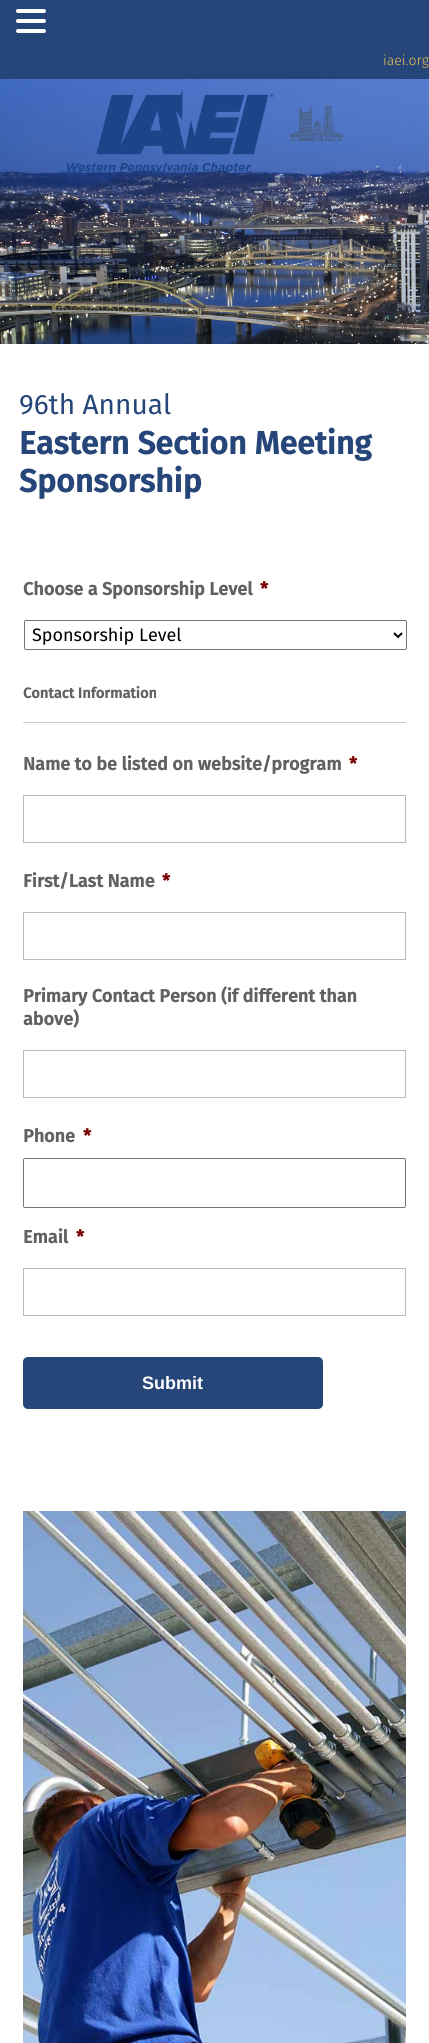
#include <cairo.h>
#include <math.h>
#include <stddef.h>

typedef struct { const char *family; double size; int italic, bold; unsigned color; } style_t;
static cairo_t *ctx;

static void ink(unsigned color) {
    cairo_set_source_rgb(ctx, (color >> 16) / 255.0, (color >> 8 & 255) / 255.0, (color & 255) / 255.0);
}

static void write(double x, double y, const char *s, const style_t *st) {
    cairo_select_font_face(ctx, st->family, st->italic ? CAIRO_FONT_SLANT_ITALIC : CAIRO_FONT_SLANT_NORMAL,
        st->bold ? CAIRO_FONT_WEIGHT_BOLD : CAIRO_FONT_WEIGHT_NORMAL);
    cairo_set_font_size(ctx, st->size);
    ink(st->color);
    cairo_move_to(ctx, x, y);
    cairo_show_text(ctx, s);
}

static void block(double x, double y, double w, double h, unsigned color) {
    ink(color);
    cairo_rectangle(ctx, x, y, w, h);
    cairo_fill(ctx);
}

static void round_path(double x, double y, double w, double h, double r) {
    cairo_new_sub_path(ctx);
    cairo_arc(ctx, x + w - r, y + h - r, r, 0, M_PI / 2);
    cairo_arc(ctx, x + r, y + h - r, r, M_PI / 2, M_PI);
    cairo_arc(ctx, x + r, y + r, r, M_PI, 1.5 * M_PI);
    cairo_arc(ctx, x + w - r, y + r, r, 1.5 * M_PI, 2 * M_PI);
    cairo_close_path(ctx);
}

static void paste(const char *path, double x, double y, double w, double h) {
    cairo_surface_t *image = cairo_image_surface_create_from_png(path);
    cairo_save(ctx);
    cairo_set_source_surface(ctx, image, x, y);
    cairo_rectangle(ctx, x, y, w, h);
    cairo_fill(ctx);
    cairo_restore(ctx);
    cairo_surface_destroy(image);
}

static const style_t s1 = {"Fira Sans Light", 14, 0, 0, 0xf0c154};
static const style_t s2 = {"Fira Sans", 28, 0, 0, 0x264578};
static const style_t s3 = {"Fira Sans", 32, 0, 1, 0x264578};
static const style_t s4 = {"Fira Sans", 18, 0, 1, 0x616161};
static const style_t s5 = {"Fira Sans", 18, 0, 1, 0x790000};
static const style_t s6 = {"Fira Sans", 18, 0, 0, 0x000000};
static const style_t s7 = {"Fira Sans", 14.6, 0, 1, 0x616161};
static const style_t s8 = {"Liberation Sans", 18, 0, 1, 0xffffff};

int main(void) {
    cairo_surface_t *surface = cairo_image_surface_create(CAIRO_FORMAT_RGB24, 429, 2043);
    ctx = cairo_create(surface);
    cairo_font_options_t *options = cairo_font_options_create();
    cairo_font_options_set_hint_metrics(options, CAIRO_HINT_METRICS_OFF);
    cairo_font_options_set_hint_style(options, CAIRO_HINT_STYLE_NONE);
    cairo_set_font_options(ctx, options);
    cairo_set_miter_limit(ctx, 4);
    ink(0xffffff);
    cairo_paint(ctx);
    block(0, 0, 429, 79, 0x254478);
    ink(0xffffff);
    round_path(16, 9, 30, 4, 2);
    cairo_fill(ctx);
    round_path(16, 19, 30, 4, 2);
    cairo_fill(ctx);
    round_path(16, 29, 30, 4, 2);
    cairo_fill(ctx);
    paste("pic1.png", 0, 79, 429, 265);
    write(383, 65, "iaei.org", &s1);
    paste("pic2.png", 67, 89, 277, 84);
    write(19, 414, "96th Annual", &s2);
    write(19, 454, "Eastern Section Meeting", &s3);
    write(19, 492, "Sponsorship", &s3);
    write(23, 595, "Choose a Sponsorship Level", &s4);
    write(260, 595, "*", &s5);
    round_path(24.5, 620.5, 382, 29, 1.5);
    ink(0x767676);
    cairo_set_line_width(ctx, 1);
    cairo_stroke(ctx);
    cairo_new_path(ctx);
    cairo_move_to(ctx, 394, 633);
    cairo_line_to(ctx, 398, 637);
    cairo_line_to(ctx, 402, 633);
    ink(0x000000);
    cairo_set_line_width(ctx, 2);
    cairo_stroke(ctx);
    write(32, 641, "Sponsorship Level", &s6);
    block(23, 722, 383, 1, 0xcccccc);
    write(23, 698, "Contact Information", &s7);
    write(23, 770, "Name to be listed on website/program", &s4);
    write(349, 770, "*", &s5);
    cairo_rectangle(ctx, 23.5, 795.5, 382, 47);
    ink(0xbbbbbb);
    cairo_set_line_width(ctx, 1);
    cairo_stroke(ctx);
    write(23, 887, "First/Last Name", &s4);
    write(162, 887, "*", &s5);
    cairo_rectangle(ctx, 23.5, 912.5, 382, 47);
    ink(0xbbbbbb);
    cairo_stroke(ctx);
    write(23, 1002, "Primary Contact Person (if different than", &s4);
    write(23, 1025, "above)", &s4);
    cairo_rectangle(ctx, 23.5, 1050.5, 382, 47);
    ink(0xbbbbbb);
    cairo_stroke(ctx);
    write(23, 1142, "Phone", &s4);
    write(83, 1142, "*", &s5);
    round_path(23.5, 1158.5, 382, 49, 1.5);
    ink(0x767676);
    cairo_stroke(ctx);
    write(23, 1243, "Email", &s4);
    write(76, 1243, "*", &s5);
    cairo_rectangle(ctx, 23.5, 1268.5, 382, 47);
    ink(0xbbbbbb);
    cairo_stroke(ctx);
    ink(0x264578);
    round_path(23, 1357, 300, 52, 5);
    cairo_fill(ctx);
    write(142, 1389, "Submit", &s8);
    paste("pic3.png", 23, 1511, 383, 532);
    cairo_surface_write_to_png(surface, "screenshot.png");
    cairo_font_options_destroy(options);
    cairo_destroy(ctx);
    cairo_surface_destroy(surface);
    return 0;
}
